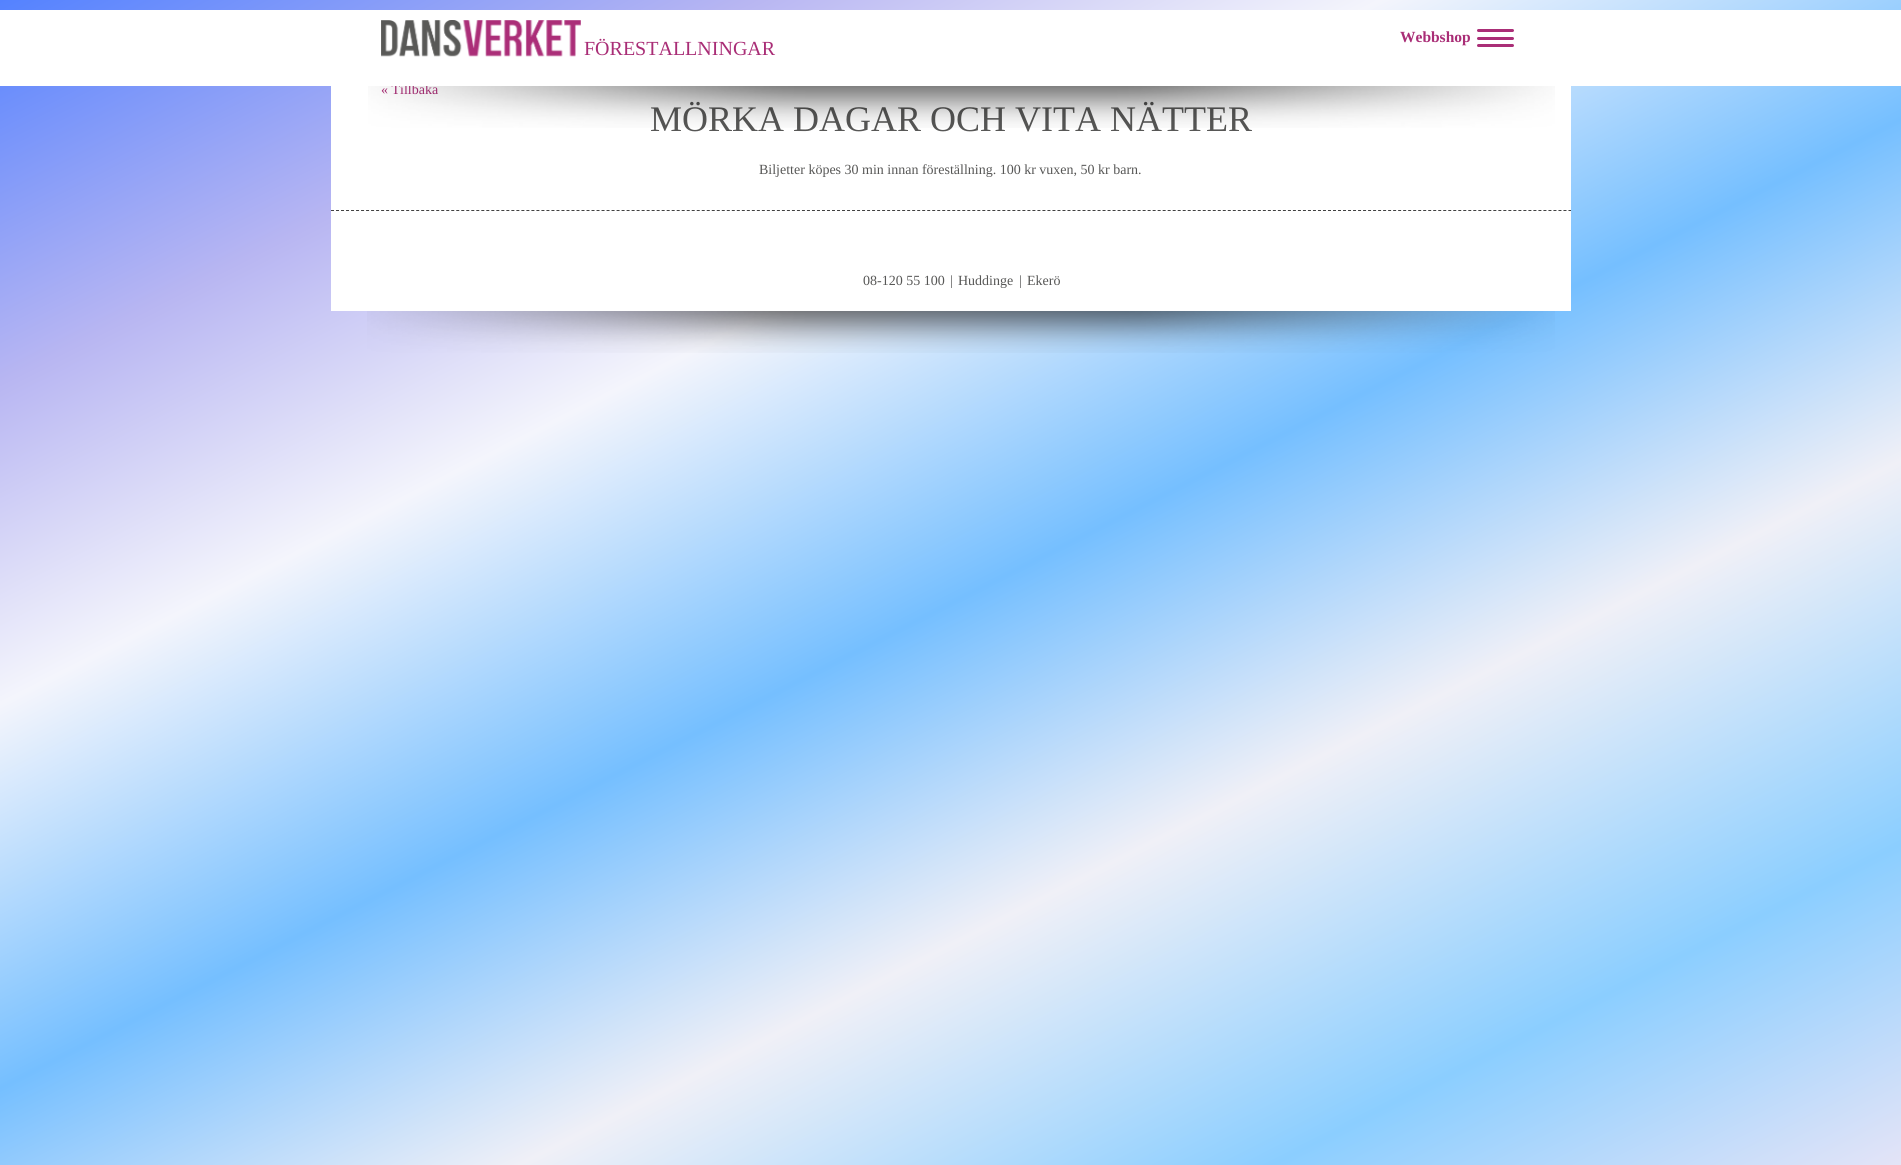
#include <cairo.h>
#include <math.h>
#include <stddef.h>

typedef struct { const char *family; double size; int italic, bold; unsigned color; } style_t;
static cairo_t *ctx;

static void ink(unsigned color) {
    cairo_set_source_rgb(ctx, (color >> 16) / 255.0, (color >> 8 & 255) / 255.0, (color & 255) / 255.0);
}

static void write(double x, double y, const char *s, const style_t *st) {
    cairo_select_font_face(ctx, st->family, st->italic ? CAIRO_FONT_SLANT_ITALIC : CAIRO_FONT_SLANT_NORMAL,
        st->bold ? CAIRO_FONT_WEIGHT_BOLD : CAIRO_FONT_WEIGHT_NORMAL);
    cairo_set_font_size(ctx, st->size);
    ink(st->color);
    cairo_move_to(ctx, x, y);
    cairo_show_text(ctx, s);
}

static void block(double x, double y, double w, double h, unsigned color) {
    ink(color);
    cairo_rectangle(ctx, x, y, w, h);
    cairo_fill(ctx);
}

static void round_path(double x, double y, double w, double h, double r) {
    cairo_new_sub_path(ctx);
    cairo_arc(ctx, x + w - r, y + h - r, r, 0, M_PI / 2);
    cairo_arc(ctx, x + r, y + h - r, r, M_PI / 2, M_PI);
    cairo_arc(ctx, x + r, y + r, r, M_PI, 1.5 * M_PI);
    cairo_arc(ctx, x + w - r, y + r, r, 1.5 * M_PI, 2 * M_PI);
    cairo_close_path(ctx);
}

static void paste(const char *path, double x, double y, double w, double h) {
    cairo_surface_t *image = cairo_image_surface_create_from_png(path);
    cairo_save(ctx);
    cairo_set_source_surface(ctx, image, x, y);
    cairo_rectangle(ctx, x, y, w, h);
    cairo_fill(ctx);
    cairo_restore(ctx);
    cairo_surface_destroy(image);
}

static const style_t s1 = {"Liberation Serif", 14, 0, 0, 0xa92d76};
static const style_t s2 = {"Liberation Serif", 20, 0, 0, 0xa92d76};
static const style_t s3 = {"Liberation Serif", 15.5, 0, 1, 0xa92d76};
static const style_t s4 = {"Liberation Serif", 36, 0, 0, 0x575756};
static const style_t s5 = {"Liberation Serif", 14, 0, 0, 0x575756};

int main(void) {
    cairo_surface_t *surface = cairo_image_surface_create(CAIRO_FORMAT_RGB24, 1901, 1165);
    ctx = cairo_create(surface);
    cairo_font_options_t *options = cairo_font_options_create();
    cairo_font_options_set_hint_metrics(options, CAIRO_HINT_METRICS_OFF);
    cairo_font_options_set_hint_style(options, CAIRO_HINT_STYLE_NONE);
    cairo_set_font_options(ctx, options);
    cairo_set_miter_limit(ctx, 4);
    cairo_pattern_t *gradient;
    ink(0xffffff);
    cairo_paint(ctx);
    gradient = cairo_pattern_create_linear(519, -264, 1382, 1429);
    cairo_pattern_add_color_stop_rgba(gradient, 0, 0.329, 0.51, 1, 1);
    cairo_pattern_add_color_stop_rgba(gradient, 0.18, 0.722, 0.714, 0.949, 1);
    cairo_pattern_add_color_stop_rgba(gradient, 0.33, 0.957, 0.961, 0.988, 1);
    cairo_pattern_add_color_stop_rgba(gradient, 0.51, 0.459, 0.749, 1, 1);
    cairo_pattern_add_color_stop_rgba(gradient, 0.67, 0.941, 0.941, 0.969, 1);
    cairo_pattern_add_color_stop_rgba(gradient, 0.85, 0.545, 0.808, 1, 1);
    cairo_pattern_add_color_stop_rgba(gradient, 1, 0.894, 0.894, 0.969, 1);
    cairo_set_source(ctx, gradient);
    cairo_pattern_destroy(gradient);
    cairo_rectangle(ctx, 0, 0, 1901, 1165);
    cairo_fill(ctx);
    block(331, 86, 1240, 225, 0xffffff);
    write(381, 94, "« Tillbaka", &s1);
    block(0, 10, 1901, 76, 0xffffff);
    paste("pic1.png", 381, 20, 200, 37);
    write(584, 55, "FÖRESTALLNINGAR", &s2);
    write(1400, 42, "Webbshop", &s3);
    ink(0xaa2e77);
    round_path(1477, 29, 37, 3, 1.5);
    cairo_fill(ctx);
    round_path(1477, 37, 37, 3, 1.5);
    cairo_fill(ctx);
    round_path(1477, 44, 37, 3, 1.5);
    cairo_fill(ctx);
    write(650, 131, "MÖRKA DAGAR OCH VITA NÄTTER", &s4);
    paste("pic2.png", 368, 86, 1187, 42);
    write(759, 174, "Biljetter köpes 30 min innan föreställning. 100 kr vuxen, 50 kr barn.", &s5);
    cairo_new_path(ctx);
    cairo_move_to(ctx, 331, 210.5);
    cairo_line_to(ctx, 1571, 210.5);
    ink(0x414141);
    cairo_set_line_width(ctx, 1);
    cairo_set_dash(ctx, (double[]){3, 2.01}, 2, 0);
    cairo_stroke(ctx);
    write(863, 285, "08-120 55 100", &s5);
    write(950, 285, "|", &s5);
    write(958, 285, "Huddinge", &s5);
    write(1019, 285, "|", &s5);
    write(1027, 285, "Ekerö", &s5);
    paste("pic3.png", 367, 311, 1188, 42);
    cairo_surface_write_to_png(surface, "screenshot.png");
    cairo_font_options_destroy(options);
    cairo_destroy(ctx);
    cairo_surface_destroy(surface);
    return 0;
}
